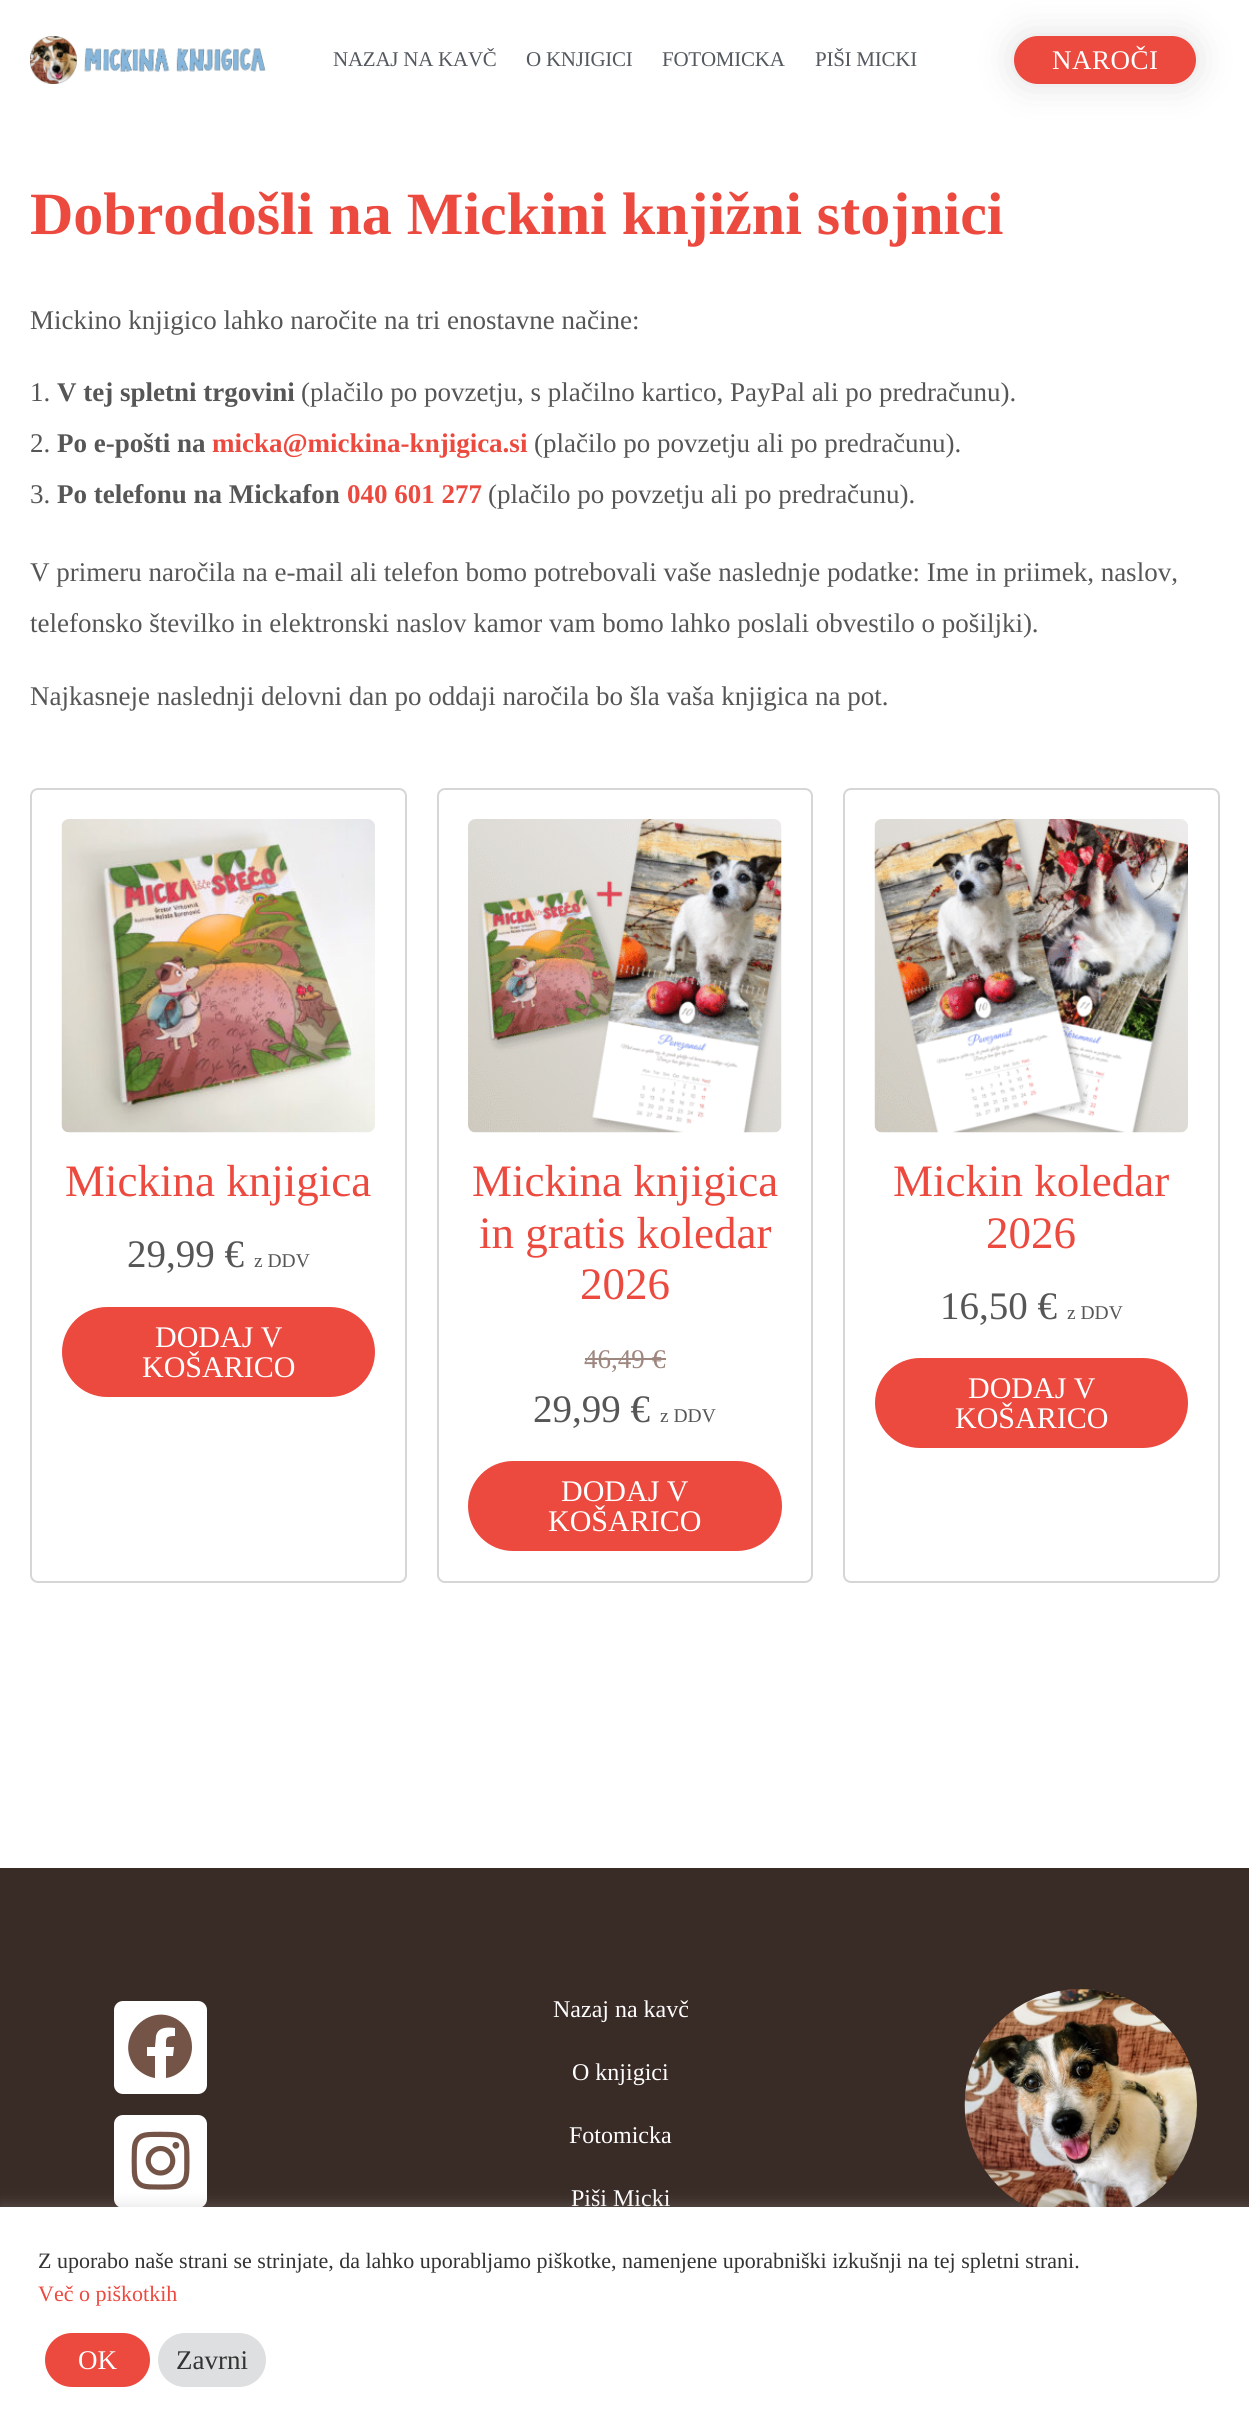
#include <cairo.h>
#include <math.h>
#include <stddef.h>

typedef struct { const char *family; double size; int italic, bold; unsigned color; } style_t;
static cairo_t *ctx;

static void ink(unsigned color) {
    cairo_set_source_rgb(ctx, (color >> 16) / 255.0, (color >> 8 & 255) / 255.0, (color & 255) / 255.0);
}

static void write(double x, double y, const char *s, const style_t *st) {
    cairo_select_font_face(ctx, st->family, st->italic ? CAIRO_FONT_SLANT_ITALIC : CAIRO_FONT_SLANT_NORMAL,
        st->bold ? CAIRO_FONT_WEIGHT_BOLD : CAIRO_FONT_WEIGHT_NORMAL);
    cairo_set_font_size(ctx, st->size);
    ink(st->color);
    cairo_move_to(ctx, x, y);
    cairo_show_text(ctx, s);
}

static void write_spaced(double x, double y, const char *s, double letter, double word) {
    cairo_move_to(ctx, x, y);
    while (*s) {
        char ch[5] = {0};
        int n = 0;
        do ch[n++] = *s++; while ((*s & 0xC0) == 0x80);
        cairo_show_text(ctx, ch);
        cairo_rel_move_to(ctx, letter + word * (*ch == ' '), 0);
    }
}

static void block(double x, double y, double w, double h, unsigned color) {
    ink(color);
    cairo_rectangle(ctx, x, y, w, h);
    cairo_fill(ctx);
}

static void round_path(double x, double y, double w, double h, double r) {
    cairo_new_sub_path(ctx);
    cairo_arc(ctx, x + w - r, y + h - r, r, 0, M_PI / 2);
    cairo_arc(ctx, x + r, y + h - r, r, M_PI / 2, M_PI);
    cairo_arc(ctx, x + r, y + r, r, M_PI, 1.5 * M_PI);
    cairo_arc(ctx, x + w - r, y + r, r, 1.5 * M_PI, 2 * M_PI);
    cairo_close_path(ctx);
}

static void blur_box(double x, double y, double w, double h, double r, double blur, double alpha) {
    cairo_push_group_with_content(ctx, CAIRO_CONTENT_ALPHA);
    cairo_set_operator(ctx, CAIRO_OPERATOR_SOURCE);
    for (int i = 15; i >= -15 && fmin(w, h) + blur * i / 3 > 0; i -= 2) {
        double e = blur * i / 6;
        cairo_set_source_rgba(ctx, 0, 0, 0, alpha * erfc((i - 1) / 8.5) / 2);
        round_path(x - e, y - e, w + 2 * e, h + 2 * e, fmax(0, fmin(r + e + blur * .6, fmin(w, h) / 2 + e)));
        cairo_fill(ctx);
    }
    cairo_pattern_t *soft = cairo_pop_group(ctx);
    cairo_mask(ctx, soft);
    cairo_pattern_destroy(soft);
}

static void paste(const char *path, double x, double y, double w, double h) {
    cairo_surface_t *image = cairo_image_surface_create_from_png(path);
    cairo_save(ctx);
    cairo_set_source_surface(ctx, image, x, y);
    cairo_rectangle(ctx, x, y, w, h);
    cairo_fill(ctx);
    cairo_restore(ctx);
    cairo_surface_destroy(image);
}

static const style_t s1 = {"Liberation Serif", 60, 0, 1, 0xec493f};
static const style_t s2 = {"Liberation Serif", 27, 0, 0, 0x565656};
static const style_t s3 = {"Liberation Serif", 27, 0, 1, 0x565656};
static const style_t s4 = {"Liberation Serif", 27, 0, 1, 0xec493f};
static const style_t s5 = {"Liberation Serif", 45, 0, 0, 0xec493f};
static const style_t s6 = {"Liberation Serif", 39, 0, 0, 0x565656};
static const style_t s7 = {"Liberation Serif", 19.5, 0, 0, 0x565656};
static const style_t s8 = {"Liberation Serif", 30, 0, 0, 0xffffff};
static const style_t s9 = {"Liberation Serif", 27, 0, 0, 0x9e877f};
static const style_t s10 = {"Liberation Serif", 24, 0, 0, 0xffffff};
static const style_t s11 = {"Liberation Serif", 22, 0, 0, 0x333333};
static const style_t s12 = {"Liberation Serif", 22, 0, 0, 0xec493f};
static const style_t s13 = {"Liberation Serif", 27, 0, 0, 0xffffff};
static const style_t s14 = {"Liberation Serif", 27, 0, 0, 0x333333};

int main(void) {
    cairo_surface_t *surface = cairo_image_surface_create(CAIRO_FORMAT_RGB24, 1249, 2431);
    ctx = cairo_create(surface);
    cairo_font_options_t *options = cairo_font_options_create();
    cairo_font_options_set_hint_metrics(options, CAIRO_HINT_METRICS_OFF);
    cairo_font_options_set_hint_style(options, CAIRO_HINT_STYLE_NONE);
    cairo_set_font_options(ctx, options);
    cairo_set_miter_limit(ctx, 4);
    ink(0xffffff);
    cairo_paint(ctx);
    paste("pic1.png", 30, 36, 236, 48);
    cairo_select_font_face(ctx, "Liberation Serif", CAIRO_FONT_SLANT_NORMAL, CAIRO_FONT_WEIGHT_NORMAL);
    cairo_set_font_size(ctx, 21);
    ink(0x54595f);
    write_spaced(333, 66, "NAZAJ NA KAVČ", -0.25, 0);
    write_spaced(526, 66, "O KNJIGICI", -0.25, 0);
    write_spaced(662, 66, "FOTOMICKA", -0.25, 0);
    write_spaced(815, 66, "PIŠI MICKI", -0.25, 0);
    ink(0x000000);
    blur_box(1014, 36, 182, 48, 24, 20, 0.12);
    ink(0xec493f);
    round_path(1014, 36, 182, 48, 24);
    cairo_fill(ctx);
    cairo_set_font_size(ctx, 27);
    ink(0xffffff);
    write_spaced(1052, 69, "NAROČI", 0.5, 0);
    write(30, 234, "Dobrodošli na Mickini knjižni stojnici", &s1);
    write(30, 329, "Mickino knjigico lahko naročite na tri enostavne načine:", &s2);
    write(30, 401, "1.", &s2);
    write(57, 401, "V tej spletni trgovini", &s3);
    write(301, 401, "(plačilo po povzetju, s plačilno kartico, PayPal ali po predračunu).", &s2);
    write(30, 452, "2.", &s2);
    write(57, 452, "Po e-pošti na", &s3);
    write(212, 452, "micka@mickina-knjigica.si", &s4);
    write(534, 452, "(plačilo po povzetju ali po predračunu).", &s2);
    write(30, 503, "3.", &s2);
    write(57, 503, "Po telefonu na Mickafon", &s3);
    write(347, 503, "040 601 277", &s4);
    write(488, 503, "(plačilo po povzetju ali po predračunu).", &s2);
    write(30, 581, "V primeru naročila na e-mail ali telefon bomo potrebovali vaše naslednje podatke: Ime in priimek, naslov,", &s2);
    write(30, 632, "telefonsko številko in elektronski naslov kamor vam bomo lahko poslali obvestilo o pošiljki).", &s2);
    write(30, 705, "Najkasneje naslednji delovni dan po oddaji naročila bo šla vaša knjigica na pot.", &s2);
    round_path(31, 789, 375, 793, 7);
    ink(0xd6d6d6);
    cairo_stroke(ctx);
    paste("pic2.png", 61, 819, 314, 314);
    write(65, 1196, "Mickina knjigica", &s5);
    write(127, 1267, "29,99 €", &s6);
    write(254, 1267, "z DDV", &s7);
    ink(0xec493f);
    round_path(62, 1307, 313, 90, 45);
    cairo_fill(ctx);
    write(155, 1347, "DODAJ V", &s8);
    write(142, 1377, "KOŠARICO", &s8);
    round_path(438, 789, 374, 793, 7);
    ink(0xd6d6d6);
    cairo_stroke(ctx);
    paste("pic3.png", 468, 819, 314, 314);
    write(472, 1196, "Mickina knjigica", &s5);
    write(479, 1248, "in gratis koledar", &s5);
    write(580, 1299, "2026", &s5);
    write(584, 1368, "46,49", &s9);
    block(585, 1358, 68, 2, 0x9e877f);
    write(652, 1368, "€", &s9);
    block(653, 1358, 13, 2, 0x9e877f);
    write(533, 1422, "29,99 €", &s6);
    write(660, 1422, "z DDV", &s7);
    ink(0xec493f);
    round_path(468, 1461, 314, 90, 45);
    cairo_fill(ctx);
    write(561, 1501, "DODAJ V", &s8);
    write(548, 1531, "KOŠARICO", &s8);
    round_path(844, 789, 375, 793, 7);
    ink(0xd6d6d6);
    cairo_stroke(ctx);
    paste("pic4.png", 874, 819, 314, 314);
    write(893, 1196, "Mickin koledar", &s5);
    write(986, 1248, "2026", &s5);
    write(940, 1319, "16,50 €", &s6);
    write(1067, 1319, "z DDV", &s7);
    ink(0xec493f);
    round_path(875, 1358, 313, 90, 45);
    cairo_fill(ctx);
    write(968, 1398, "DODAJ V", &s8);
    write(955, 1428, "KOŠARICO", &s8);
    block(0, 1868, 1249, 339, 0x392b26);
    ink(0xffffff);
    round_path(114, 2001, 93, 93, 9);
    cairo_fill(ctx);
    ink(0x755448);
    cairo_new_path(ctx);
    cairo_move_to(ctx, 192, 2047);
    cairo_curve_to(ctx, 192, 2062, 181, 2076, 166, 2078);
    cairo_line_to(ctx, 166, 2056);
    cairo_line_to(ctx, 173, 2056);
    cairo_line_to(ctx, 174, 2047);
    cairo_line_to(ctx, 166, 2047);
    cairo_curve_to(ctx, 166, 2038, 165, 2036, 175, 2036);
    cairo_line_to(ctx, 175, 2028);
    cairo_curve_to(ctx, 167, 2027, 158, 2027, 156, 2036);
    cairo_line_to(ctx, 155, 2047);
    cairo_line_to(ctx, 147, 2047);
    cairo_line_to(ctx, 147, 2056);
    cairo_line_to(ctx, 155, 2056);
    cairo_line_to(ctx, 155, 2078);
    cairo_curve_to(ctx, 148, 2077, 141, 2073, 136, 2068);
    cairo_curve_to(ctx, 112, 2040, 148, 2000, 178, 2020);
    cairo_curve_to(ctx, 187, 2026, 192, 2036, 192, 2047);
    cairo_close_path(ctx);
    cairo_fill(ctx);
    ink(0xffffff);
    round_path(114, 2115, 93, 93, 9);
    cairo_fill(ctx);
    paste("pic5.png", 131, 2131, 59, 59);
    write(553, 2017, "Nazaj na kavč", &s10);
    write(572, 2080, "O knjigici", &s10);
    write(569, 2143, "Fotomicka", &s10);
    write(571, 2206, "Piši Micki", &s10);
    paste("pic6.png", 964, 1989, 233, 218);
    ink(0xacabab);
    blur_box(0, 2205, 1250, 225, 0, 7.5, 0.3);
    block(0, 2207, 1249, 224, 0xffffff);
    write(38, 2268, "Z uporabo naše strani se strinjate, da lahko uporabljamo piškotke, namenjene uporabniški izkušnji na tej spletni strani.", &s11);
    write(38, 2301, "Več o piškotkih", &s12);
    round_path(45, 2333, 105, 54, 27);
    cairo_fill(ctx);
    write(78, 2369, "OK", &s13);
    ink(0xdedfe0);
    round_path(158, 2333, 108, 54, 27);
    cairo_fill(ctx);
    write(176, 2369, "Zavrni", &s14);
    cairo_surface_write_to_png(surface, "screenshot.png");
    cairo_font_options_destroy(options);
    cairo_destroy(ctx);
    cairo_surface_destroy(surface);
    return 0;
}
